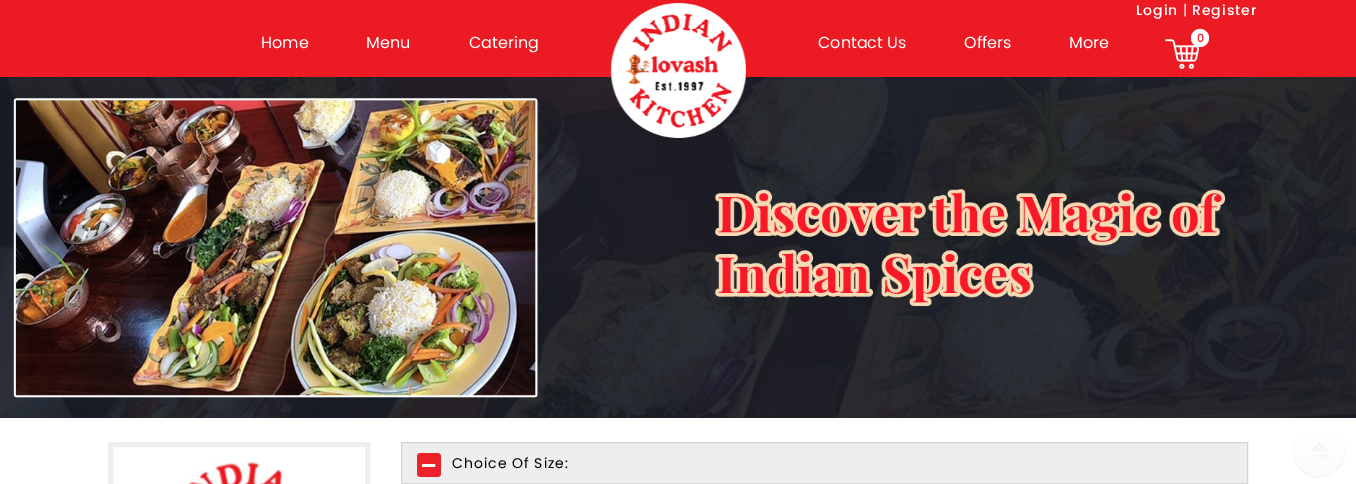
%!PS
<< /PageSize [1356 484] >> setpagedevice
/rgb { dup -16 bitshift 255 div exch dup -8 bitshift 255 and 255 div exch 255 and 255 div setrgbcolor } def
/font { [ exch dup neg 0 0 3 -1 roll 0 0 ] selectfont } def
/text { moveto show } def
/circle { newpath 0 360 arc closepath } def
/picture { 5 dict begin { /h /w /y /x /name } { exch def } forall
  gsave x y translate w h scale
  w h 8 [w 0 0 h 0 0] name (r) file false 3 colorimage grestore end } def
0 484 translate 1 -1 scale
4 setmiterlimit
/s1 { /Poppins-Regular 16 font 16#FFFFFF rgb } def
16#FFFFFF rgb
0 0 1356 484 rectfill
16#EC1A22 rgb
0 0 1356 77 rectfill
s1
(Home) 261 48 text
(Menu) 366 48 text
(Catering) 469 48 text
(pic3.raw) 0 77 1356 341 picture
(pic1.raw) 610 3 136 135 picture
(Contact Us) 818 48 text
(Offers) 964 48 text
(More) 1069 48 text
/Poppins-Medium 14 font
1136 15 moveto 1 0 (Login) ashow
/Poppins-Regular 14 font
1183 15 moveto 1 0 (|) ashow
/Poppins-Medium 14 font
1192 15 moveto 1 0 (Register) ashow
(pic2.raw) 1165 39 34 30 picture
1200 38 9 circle fill
/Poppins-Bold 11 font
16#EC1A22 rgb
1197 42 moveto 1 0 (0) ashow
(pic4.raw) 1293 432 52 46 picture
16#EEEEEE rgb
5 setlinewidth
110.5 444.5 257 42 rectstroke
(pic5.raw) 187 461 98 23 picture
402 443 845 40 rectfill
(pic6.raw) 417 453 24 24 picture
16#D4D4D4 rgb
1 setlinewidth
401.5 442.5 846 41 rectstroke
/Poppins-Regular 14 font
16#000000 rgb
452 468 moveto 1 0 (Choice Of Size:) ashow
showpage
